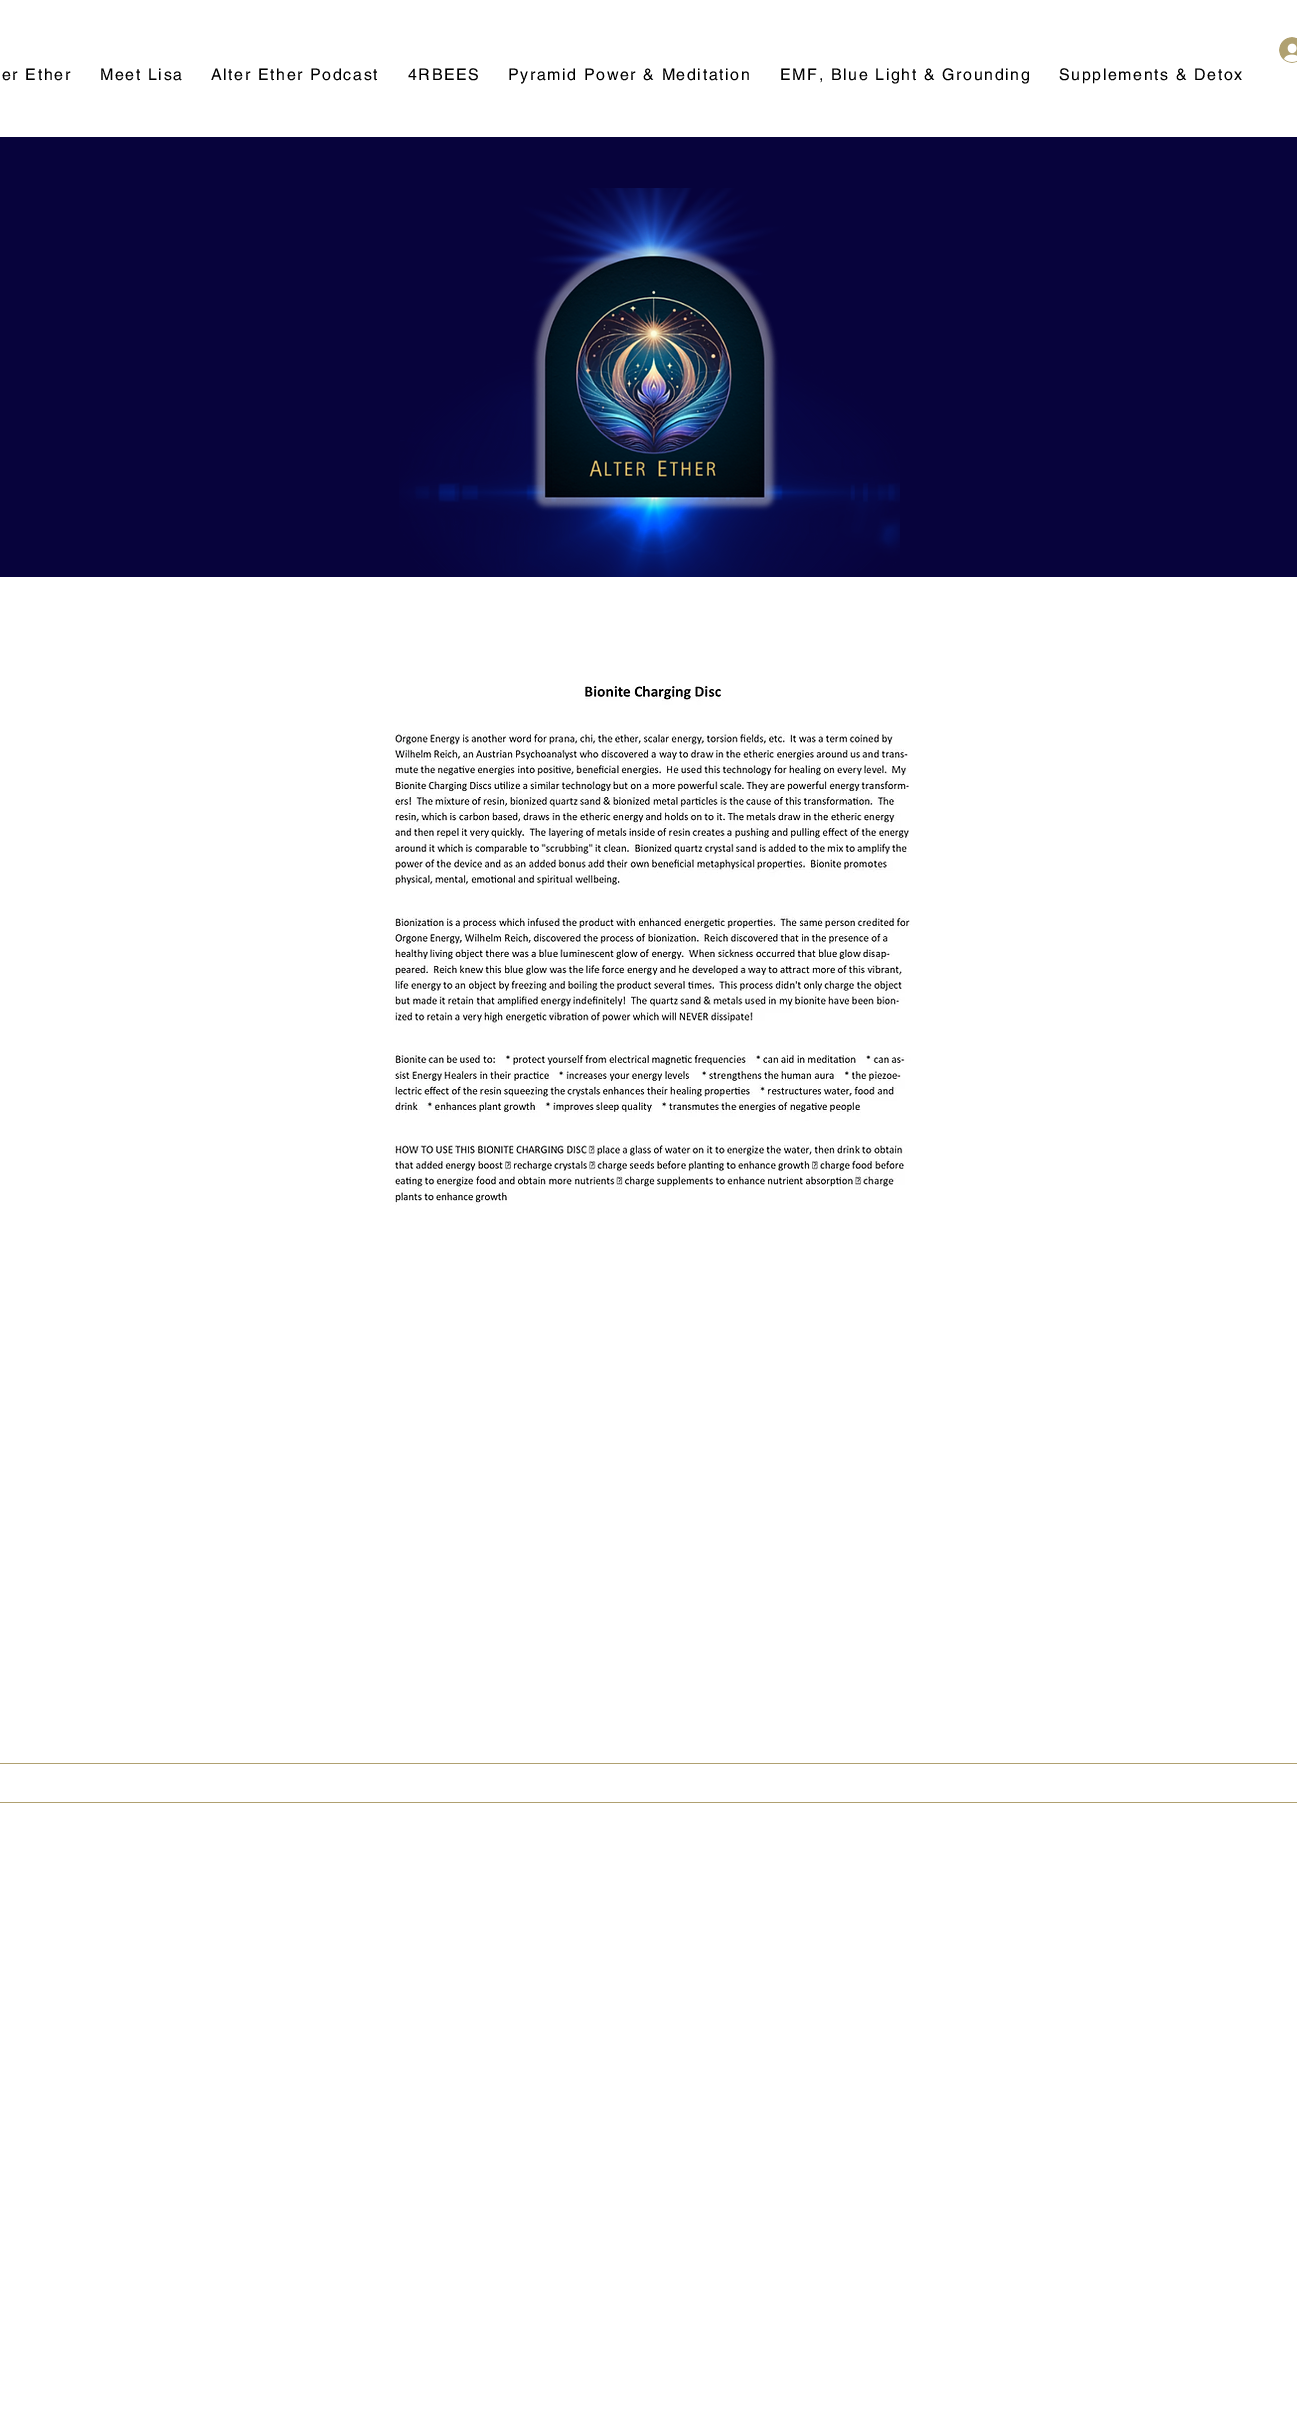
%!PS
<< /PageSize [1297 2420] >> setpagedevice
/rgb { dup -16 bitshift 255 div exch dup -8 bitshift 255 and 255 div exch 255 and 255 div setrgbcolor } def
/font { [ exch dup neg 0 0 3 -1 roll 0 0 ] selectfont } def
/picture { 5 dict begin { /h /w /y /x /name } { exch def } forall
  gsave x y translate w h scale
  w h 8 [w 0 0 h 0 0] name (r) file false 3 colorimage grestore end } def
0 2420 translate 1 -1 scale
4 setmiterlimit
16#FFFFFF rgb
0 0 1297 2420 rectfill
(pic1.raw) 1279 37 18 26 picture
/helvetica-Regular 16 font
16#000000 rgb
2 80 moveto 1.6 0 (er Ether) ashow
100 80 moveto 1.6 0 (Meet Lisa) ashow
211 80 moveto 1.6 0 (Alter Ether Podcast) ashow
408 80 moveto 1.6 0 (4RBEES) ashow
508 80 moveto 1.6 0 (Pyramid Power & Meditation) ashow
780 80 moveto 1.6 0 (EMF, Blue Light & Grounding) ashow
1059 80 moveto 1.6 0 (Supplements & Detox) ashow
16#07033C rgb
0 137 1297 440 rectfill
(pic2.raw) 399 188 501 389 picture
(pic3.raw) 393 685 518 520 picture
16#B0A171 rgb
0 1763 1297 1 rectfill
0 1802 1297 1 rectfill
showpage
